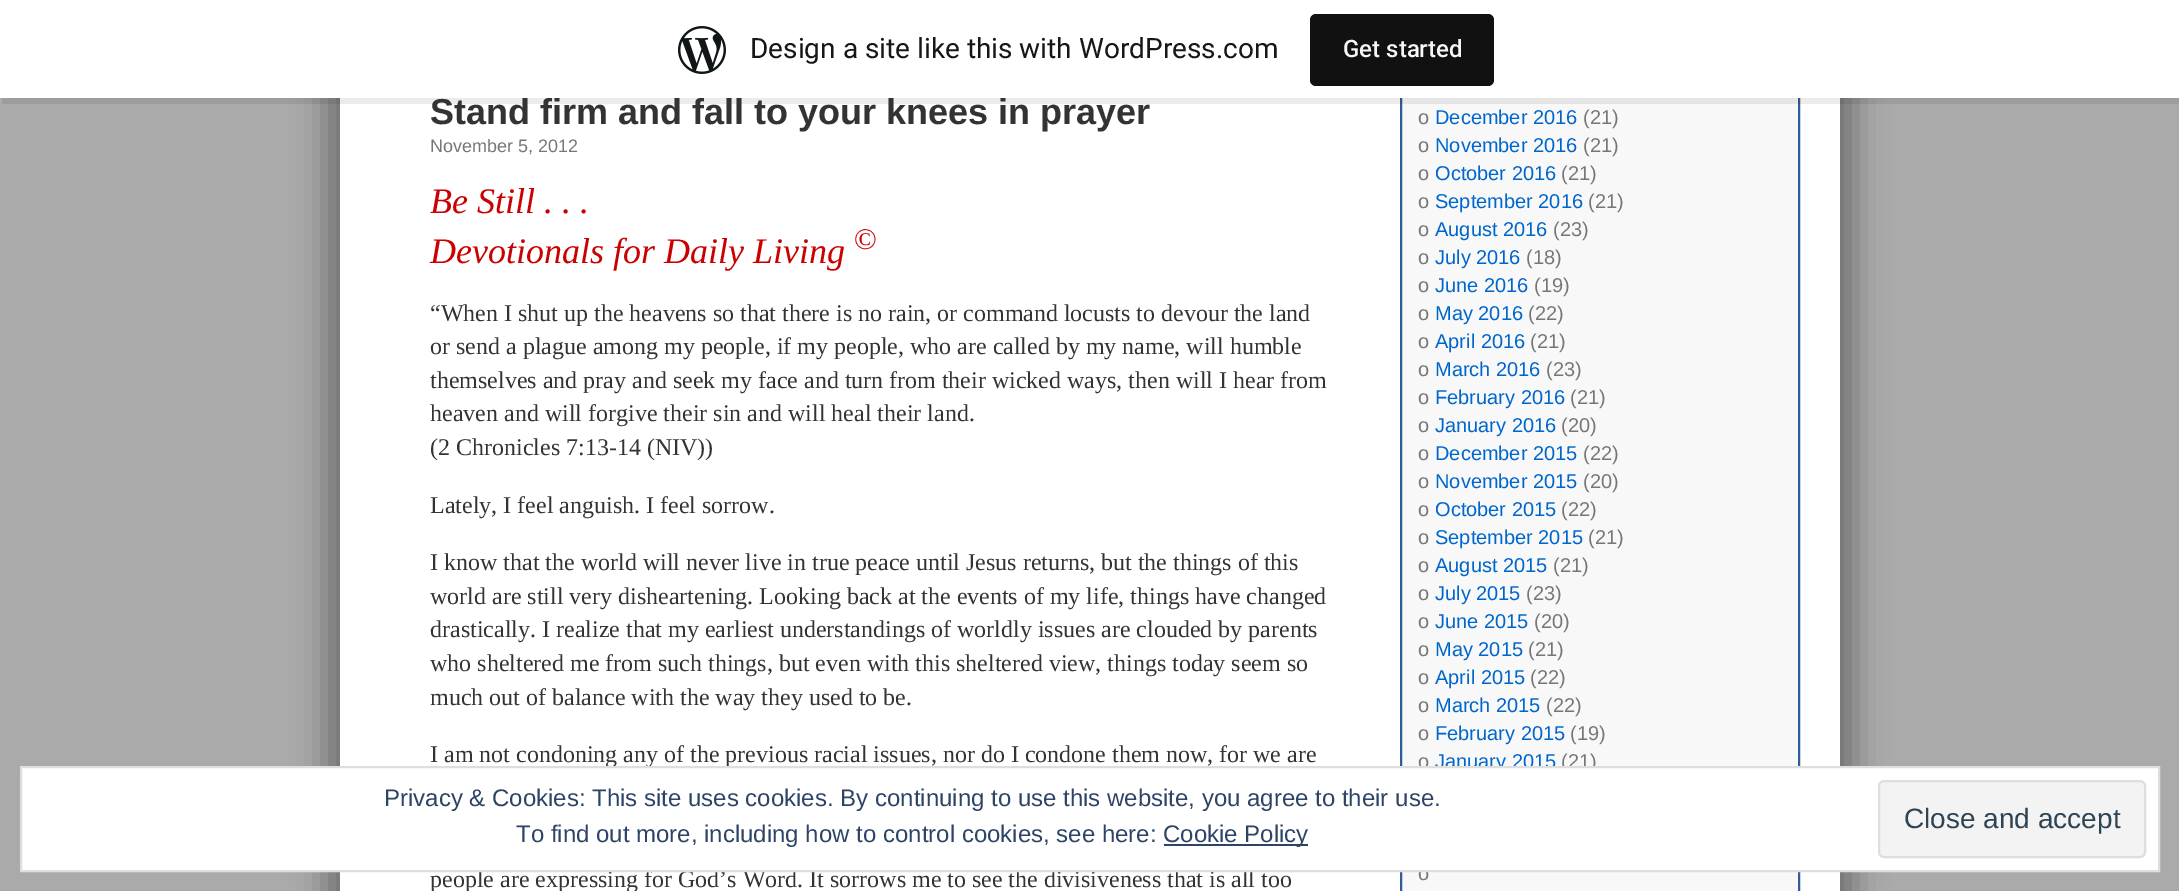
%!PS
<< /PageSize [2179 891] /PageUsesTransparency true >> setpagedevice
/rgb { dup -16 bitshift 255 div exch dup -8 bitshift 255 and 255 div exch 255 and 255 div setrgbcolor } def
/font { [ exch dup neg 0 0 3 -1 roll 0 0 ] selectfont } def
/text { moveto show } def
/alpha { dup .setfillconstantalpha .setstrokeconstantalpha } def
/roundrect { 5 dict begin { /r /h /w /y /x } { exch def } forall
  x r add y moveto x w add y 2 copy h add r arct x w add y h add x 1 index r arct
  x y h add x y r arct x y 2 copy exch w add exch r arct closepath end } def
/shadow { 12 dict begin { /a /b /q /h /w /y /x } { exch def } forall gsave /was 0 def
  9 -2 -9 { dup b mul 4 div /e exch def 1 sub .425 mul 2.718 exch exp 1 add a .99 .min exch div /now exch def
    1 1 now sub 1 was sub div sub alpha /was now def
    w h .min e 2 mul add 0 gt { x e sub y e sub w e 2 mul add h e 2 mul add
      q e add b .6 mul add w h .min 2 div e add .min 0 .max roundrect fill } if } for grestore end } def
/picture { 5 dict begin { /h /w /y /x /name } { exch def } forall
  gsave x y translate w h scale
  w h 8 [w 0 0 h 0 0] name (r) file false 3 colorimage grestore end } def
0 .pushpdf14devicefilter
0 891 translate 1 -1 scale
4 setmiterlimit
/s1 { /LiberationSans-Bold 36 font 16#333333 rgb } def
/s2 { /Roboto-Regular 28 font 16#171717 rgb } def
/s3 { /Roboto-Medium 24 font 16#F6F7F7 rgb } def
/s4 { /LiberationSans-Regular 18 font 16#777777 rgb } def
/s5 { /LiberationSerif-Italic 36 font 16#C90101 rgb } def
/s6 { /LiberationSerif-Regular 30 font 16#C90101 rgb } def
/s7 { /LiberationSerif-Regular 24 font 16#333333 rgb } def
/s8 { /LiberationSans-Regular 20 font 16#777777 rgb } def
/s9 { /LiberationSans-Regular 20 font 16#0066CC rgb } def
/s10 { /LiberationSans-Regular 24 font 16#2E4467 rgb } def
/s11 { /LiberationSans-Regular 28 font 16#2E4453 rgb } def
16#AAAAAA rgb
0 0 2179 891 rectfill
16#000000 rgb
324 -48 1500 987 0 16 0.3 shadow
356 -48 1500 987 0 16 0.3 shadow
16#FFFFFF rgb
340 98 1500 793 rectfill
16#F8F8F8 rgb
1402 98 396 793 rectfill
16#2E5D99 rgb
2 setlinewidth
1401 -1 398 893 rectstroke
0.08 alpha
16#000000 rgb
2 98 moveto 2 104 lineto 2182 104 lineto 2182 6 lineto 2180 6 lineto 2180 98 lineto closepath fill
1 alpha
s1
(Stand firm and fall to your knees in prayer) 430 124 text
16#FFFFFF rgb
0 0 2179 98 rectfill
(pic1.raw) 678 26 48 48 picture
s2
(Design a site like this with WordPress.com) 750 58 text
16#111111 rgb
1310 14 184 72 6 roundrect fill
s3
(Get started) 1343 57 text
s4
(November 5, 2012) 430 152 text
s5
(Be Still . . .) 430 213 text
(Devotionals for Daily Living) 430 263 text
s6
(©) 854 249 text
s7
(“When I shut up the heavens so that there is no rain, or command locusts to devour the land) 430 321 text
(or send a plague among my people, if my people, who are called by my name, will humble) 430 354 text
(themselves and pray and seek my face and turn from their wicked ways, then will I hear from) 430 388 text
(heaven and will forgive their sin and will heal their land.) 430 421 text
(\(2 Chronicles 7:13-14 \(NIV\)\)) 430 455 text
(Lately, I feel anguish. I feel sorrow.) 430 513 text
(I know that the world will never live in true peace until Jesus returns, but the things of this) 430 570 text
(world are still very disheartening. Looking back at the events of my life, things have changed) 430 604 text
(drastically. I realize that my earliest understandings of worldly issues are clouded by parents) 430 637 text
(who sheltered me from such things, but even with this sheltered view, things today seem so) 430 671 text
(much out of balance with the way they used to be.) 430 705 text
(I am not condoning any of the previous racial issues, nor do I condone them now, for we are) 430 762 text
(people are expressing for God’s Word. It sorrows me to see the divisiveness that is all too) 430 887 text
s8
(o) 1418 124 text
s9
(December 2016) 1435 124 text
s8
(\(21\)) 1583 124 text
(o) 1418 152 text
s9
(November 2016) 1435 152 text
s8
(\(21\)) 1583 152 text
(o) 1418 180 text
s9
(October 2016) 1435 180 text
s8
(\(21\)) 1561 180 text
(o) 1418 208 text
s9
(September 2016) 1435 208 text
s8
(\(21\)) 1588 208 text
(o) 1418 236 text
s9
(August 2016) 1435 236 text
s8
(\(23\)) 1553 236 text
(o) 1418 264 text
s9
(July 2016) 1435 264 text
s8
(\(18\)) 1526 264 text
(o) 1418 292 text
s9
(June 2016) 1435 292 text
s8
(\(19\)) 1534 292 text
(o) 1418 320 text
s9
(May 2016) 1435 320 text
s8
(\(22\)) 1528 320 text
(o) 1418 348 text
s9
(April 2016) 1435 348 text
s8
(\(21\)) 1530 348 text
(o) 1418 376 text
s9
(March 2016) 1435 376 text
s8
(\(23\)) 1546 376 text
(o) 1418 404 text
s9
(February 2016) 1435 404 text
s8
(\(21\)) 1570 404 text
(o) 1418 432 text
s9
(January 2016) 1435 432 text
s8
(\(20\)) 1561 432 text
(o) 1418 460 text
s9
(December 2015) 1435 460 text
s8
(\(22\)) 1583 460 text
(o) 1418 488 text
s9
(November 2015) 1435 488 text
s8
(\(20\)) 1583 488 text
(o) 1418 516 text
s9
(October 2015) 1435 516 text
s8
(\(22\)) 1561 516 text
(o) 1418 544 text
s9
(September 2015) 1435 544 text
s8
(\(21\)) 1588 544 text
(o) 1418 572 text
s9
(August 2015) 1435 572 text
s8
(\(21\)) 1553 572 text
(o) 1418 600 text
s9
(July 2015) 1435 600 text
s8
(\(23\)) 1526 600 text
(o) 1418 628 text
s9
(June 2015) 1435 628 text
s8
(\(20\)) 1534 628 text
(o) 1418 656 text
s9
(May 2015) 1435 656 text
s8
(\(21\)) 1528 656 text
(o) 1418 684 text
s9
(April 2015) 1435 684 text
s8
(\(22\)) 1530 684 text
(o) 1418 712 text
s9
(March 2015) 1435 712 text
s8
(\(22\)) 1546 712 text
(o) 1418 740 text
s9
(February 2015) 1435 740 text
s8
(\(19\)) 1570 740 text
(o) 1418 768 text
s9
(January 2015) 1435 768 text
s8
(\(21\)) 1561 768 text
(o) 1418 880 text
16#FFFFFF rgb
21 767 moveto 2159 767 lineto 2159 871 lineto 21 871 lineto closepath gsave fill grestore
16#DEDEDE rgb
stroke
s10
(Privacy & Cookies: This site uses cookies. By continuing to use this website, you agree to their use.) 384 806 text
(To find out more, including how to control cookies, see here:) 516 842 text
1164 844 144 2 rectfill
(Cookie Policy) 1163 842 text
16#F3F3F3 rgb
1879 781 266 76 5 roundrect gsave fill grestore
16#DEDEDE rgb
stroke
s11
(Close and accept) 1904 828 text
.poppdf14devicefilter showpage
